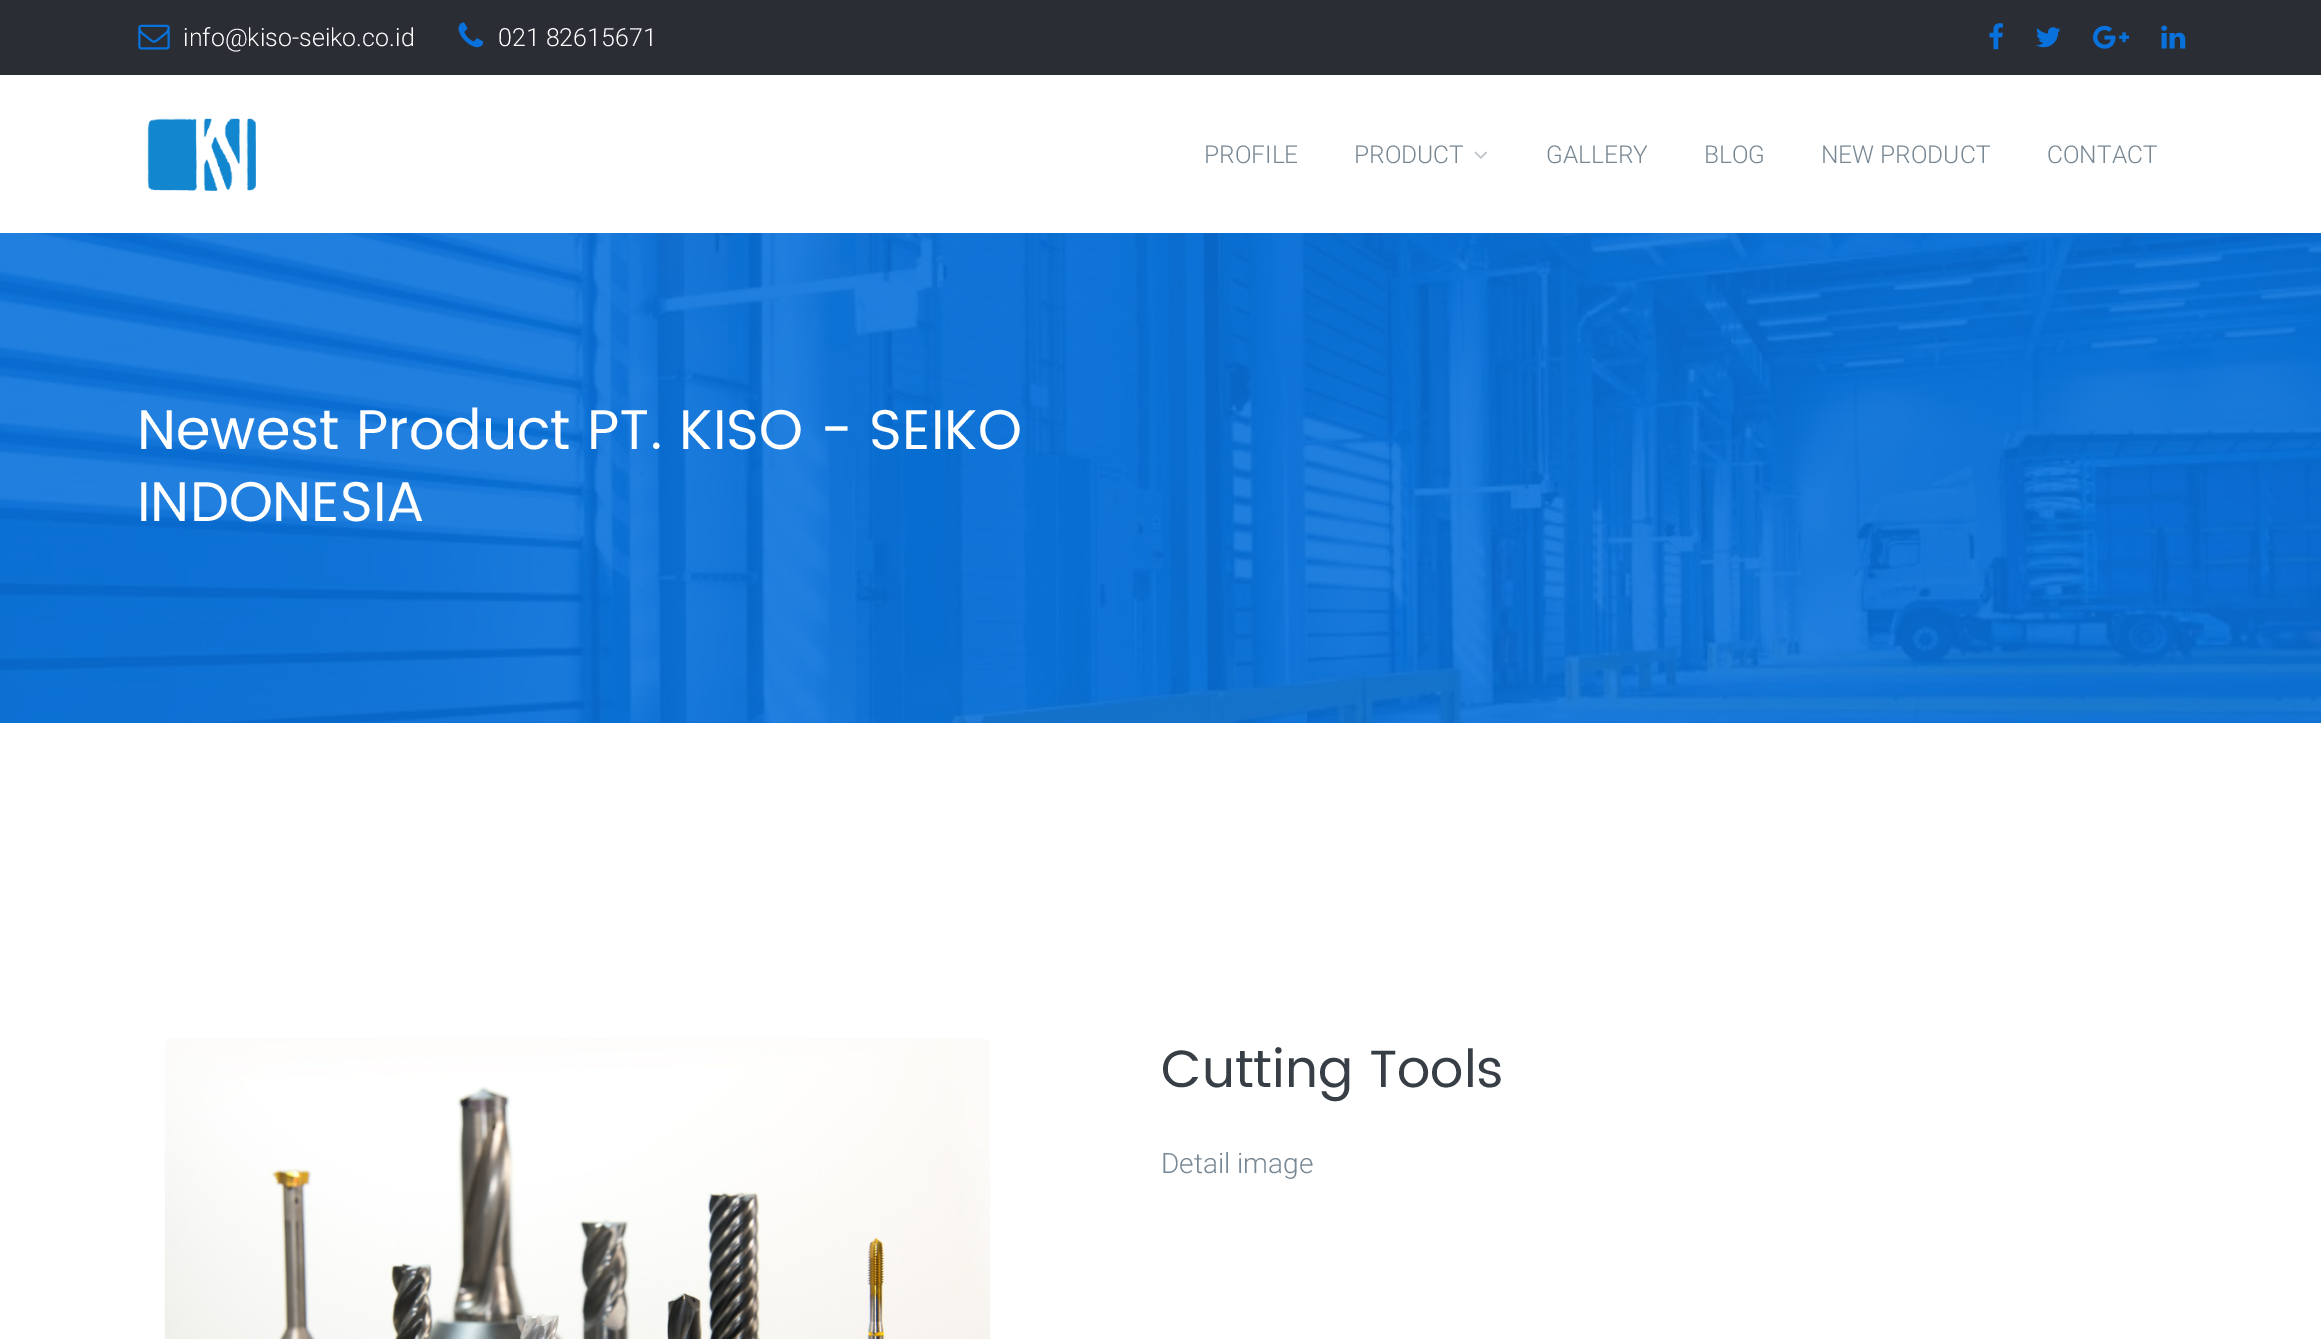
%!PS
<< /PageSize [2321 1339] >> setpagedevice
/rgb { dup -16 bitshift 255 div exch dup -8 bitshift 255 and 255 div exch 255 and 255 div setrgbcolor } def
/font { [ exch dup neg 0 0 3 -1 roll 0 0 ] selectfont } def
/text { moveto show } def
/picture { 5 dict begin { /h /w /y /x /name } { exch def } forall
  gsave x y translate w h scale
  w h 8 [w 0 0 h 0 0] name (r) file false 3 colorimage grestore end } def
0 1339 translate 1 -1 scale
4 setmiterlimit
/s1 { /Roboto-Light 25 font 16#FFFFFF rgb } def
/s2 { /Roboto-Light 24.5 font 16#778793 rgb } def
/s3 { /Poppins-Regular 56 font 16#FFFFFF rgb } def
/s4 { /Poppins-Regular 52.5 font 16#373E45 rgb } def
/s5 { /Roboto-Light 28 font 16#778793 rgb } def
16#FFFFFF rgb
0 0 2321 1339 rectfill
16#2A2D33 rgb
0 0 2321 74 rectfill
16#272A30 rgb
0 74 2321 1 rectfill
(pic1.raw) 138 24 32 26 picture
s1
(info@kiso-seiko.co.id) 183 46 text
(pic2.raw) 458 22 26 26 picture
(021 82615671) 498 46 text
(pic3.raw) 1989 23 14 27 picture
(pic4.raw) 2036 27 25 21 picture
(pic5.raw) 2093 25 36 24 picture
(pic6.raw) 2161 25 25 24 picture
(pic7.raw) 147 118 109 73 picture
s2
(PROFILE) 1204 163 text
(PRODUCT) 1354 163 text
(pic8.raw) 1474 151 13 8 picture
(GALLERY) 1546 163 text
(BLOG) 1704 163 text
(NEW PRODUCT) 1821 163 text
(CONTACT) 2047 163 text
(pic9.raw) 0 233 2321 490 picture
s3
(Newest Product PT. KISO - SEIKO) 137 449 text
(INDONESIA) 137 521 text
(pic10.raw) 164 1038 827 301 picture
s4
(Cutting Tools) 1161 1087 text
s5
(Detail image) 1161 1173 text
showpage
